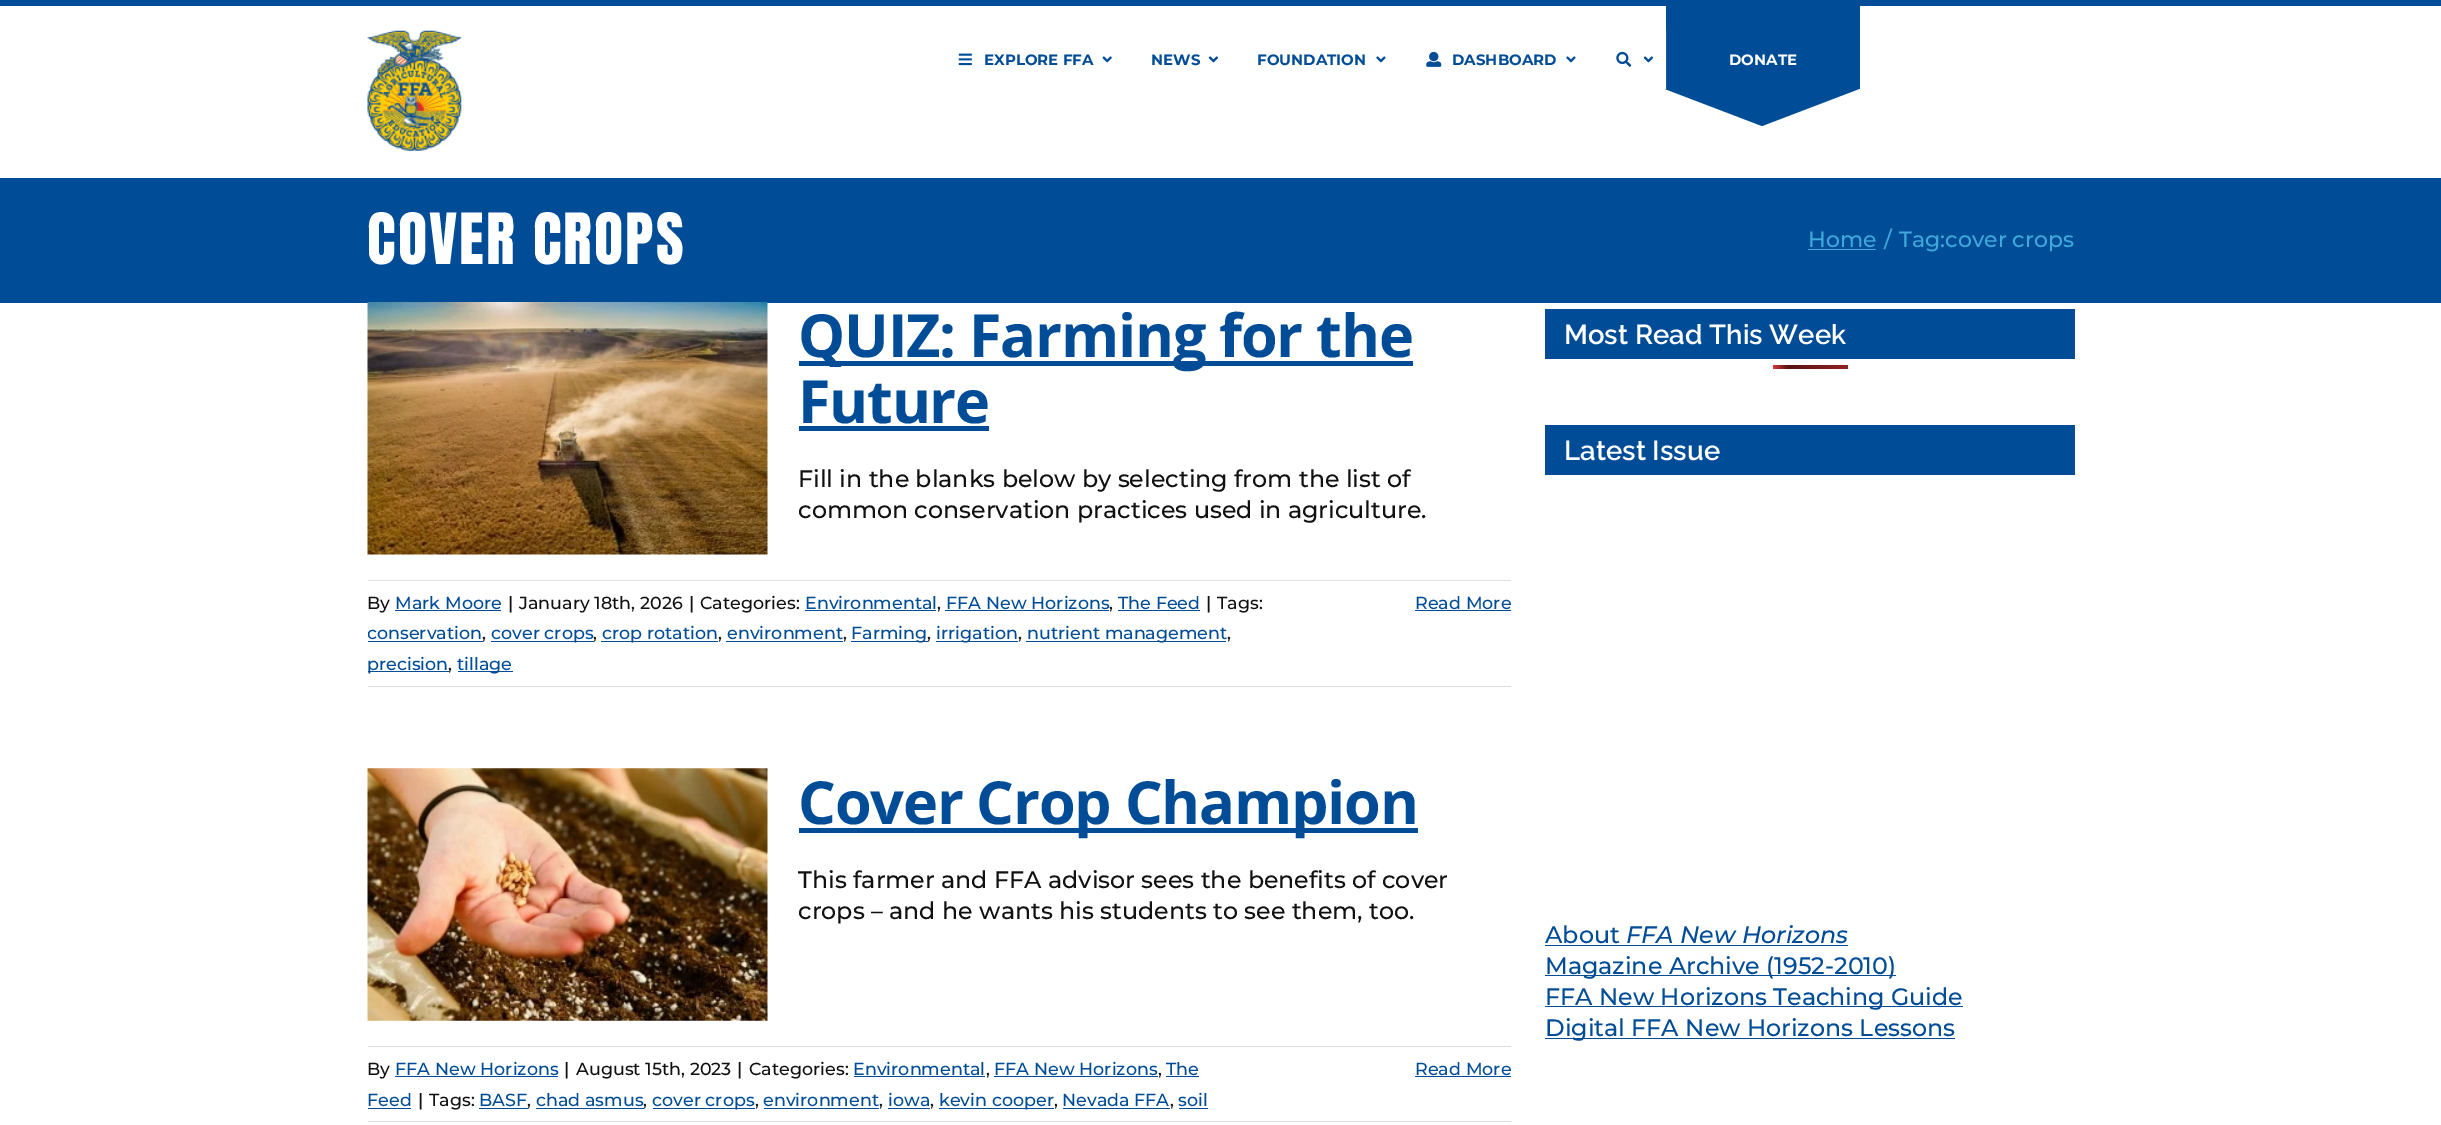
%!PS
<< /PageSize [2441 1125] >> setpagedevice
/rgb { dup -16 bitshift 255 div exch dup -8 bitshift 255 and 255 div exch 255 and 255 div setrgbcolor } def
/font { [ exch dup neg 0 0 3 -1 roll 0 0 ] selectfont } def
/text { moveto show } def
/roundrect { 5 dict begin { /r /h /w /y /x } { exch def } forall
  x r add y moveto x w add y 2 copy h add r arct x w add y h add x 1 index r arct
  x y h add x y r arct x y 2 copy exch w add exch r arct closepath end } def
/picture { 5 dict begin { /h /w /y /x /name } { exch def } forall
  gsave x y translate w h scale
  w h 8 [w 0 0 h 0 0] name (r) file false 3 colorimage grestore end } def
0 1125 translate 1 -1 scale
4 setmiterlimit
/s1 { /Montserrat-Bold 15 font 16#004C97 rgb } def
/s2 { /Montserrat-Bold 15 font 16#FFFFFF rgb } def
/s3 { /Montserrat-Medium 22 font 16#3EA9DA rgb } def
/s4 { /Montserrat-Medium 23.75 font 16#111111 rgb } def
/s5 { /Montserrat-Medium 17.5 font 16#111111 rgb } def
/s6 { /Montserrat-Medium 17.5 font 16#004C97 rgb } def
/s7 { /Raleway-Thin 27.5 font 16#FFFFFF rgb } def
/s8 { /Montserrat-Medium 23.75 font 16#004C97 rgb } def
/s9 { /Montserrat-MediumItalic 23.75 font 16#004C97 rgb } def
16#FFFFFF rgb
0 0 2441 1125 rectfill
16#004C97 rgb
0 0 2441 6 rectfill
(pic1.raw) 367 30 95 121 picture
(pic2.raw) 958 53 14 13 picture
s1
(EXPLORE FFA) 984 65 text
(pic3.raw) 1102 56 10 7 picture
(NEWS) 1151 65 text
(pic4.raw) 1208 56 11 7 picture
(FOUNDATION) 1257 65 text
(pic5.raw) 1376 56 10 7 picture
(pic6.raw) 1426 51 16 16 picture
(DASHBOARD) 1452 65 text
(pic5.raw) 1566 56 10 7 picture
(pic7.raw) 1616 51 16 16 picture
(pic4.raw) 1643 56 11 7 picture
1666 6 194 25 rectfill
1667 31 193 58 rectfill
16#1A5EA1 rgb
1666 31 1 58 rectfill
s2
(DONATE) 1729 65 text
16#004C97 rgb
1665 89 moveto 1859 89 lineto 1762 126 lineto closepath eofill
0 178 2441 125 rectfill
/Anton-Regular 60 font
16#FFFFFF rgb
367 264 moveto 2.1 0 (COVER CROPS) ashow
s3
(Home) 1808 247 text
1808 249 68 1 rectfill
(/) 1884 247 text
(Tag:cover crops) 1899 247 text
(pic8.raw) 367 302 401 253 picture
16#004C97 rgb
799 361 614 5 rectfill
/OpenSans-Bold 59.4 font
798 357 moveto -1.25 0 (QUIZ: Farming for the) ashow
798 423 moveto -1.25 0 (Future) ashow
799 426 190 5 rectfill
s4
(Fill in the blanks below by selecting from the list of) 798 487 text
(common conservation practices used in agriculture.) 798 518 text
16#E0DEDE rgb
368 580 1143 1 rectfill
368 686 1143 1 rectfill
s5
(By) 367 609 text
s6
(Mark Moore) 395 609 text
395 610 106 1 rectfill
s5
(|) 508 609 text
(January 18th, 2026) 519 609 text
(|) 689 609 text
(Categories:) 700 609 text
s6
(Environmental) 805 609 text
805 610 131 1 rectfill
s5
(,) 937 609 text
s6
(FFA New Horizons) 946 609 text
945 610 164 1 rectfill
s5
(,) 1109 609 text
s6
(The Feed) 1118 609 text
1118 610 82 1 rectfill
s5
(|) 1206 609 text
(Tags:) 1217 609 text
gsave
368 581 1143 105 rectclip
s6
(conservation) 367 639 text
grestore
16#004C97 rgb
368 641 115 1 rectfill
s5
(,) 482 639 text
16#004C97 rgb
491 641 103 1 rectfill
(cover crops) 491 639 text
s5
(,) 593 639 text
16#004C97 rgb
601 641 117 1 rectfill
(crop rotation) 602 639 text
s5
(,) 718 639 text
s6
(environment) 727 639 text
s5
(,) 843 639 text
16#004C97 rgb
726 641 117 1 rectfill
851 641 77 1 rectfill
(Farming) 851 639 text
s5
(,) 927 639 text
16#004C97 rgb
936 641 82 1 rectfill
(irrigation) 936 639 text
s5
(,) 1018 639 text
16#004C97 rgb
1026 641 200 1 rectfill
(nutrient management) 1027 639 text
s5
(,) 1227 639 text
16#004C97 rgb
368 671 81 1 rectfill
(precision) 367 670 text
s5
(,) 448 670 text
16#004C97 rgb
458 671 55 1 rectfill
(tillage) 457 670 text
(Read More) 1415 609 text
1415 610 96 1 rectfill
(pic9.raw) 367 768 401 253 picture
799 828 619 5 rectfill
/OpenSans-Bold 59.4 font
798 824 moveto -1.25 0 (Cover Crop Champion) ashow
s4
(This farmer and FFA advisor sees the benefits of cover) 798 888 text
(crops – and he wants his students to see them, too.) 798 919 text
16#E0DEDE rgb
368 1046 1143 1 rectfill
368 1121 1143 1 rectfill
s5
(By) 367 1075 text
s6
(FFA New Horizons) 395 1075 text
395 1076 163 1 rectfill
s5
(|) 564 1075 text
(August 15th, 2023) 576 1075 text
(|) 737 1075 text
(Categories:) 749 1075 text
s6
(Environmental) 853 1075 text
854 1076 131 1 rectfill
s5
(,) 986 1075 text
s6
(FFA New Horizons) 994 1075 text
994 1076 164 1 rectfill
s5
(,) 1158 1075 text
s6
(The) 1166 1075 text
1166 1076 33 1 rectfill
(Feed) 367 1106 text
368 1108 43 1 rectfill
s5
(|) 418 1106 text
(Tags:) 429 1106 text
s6
(BASF) 479 1106 text
s5
(,) 527 1106 text
16#004C97 rgb
479 1108 49 1 rectfill
(chad asmus) 536 1106 text
s5
(,) 643 1106 text
16#004C97 rgb
536 1108 108 1 rectfill
653 1108 102 1 rectfill
(cover crops) 652 1106 text
s5
(,) 755 1106 text
s6
(environment) 763 1106 text
s5
(,) 879 1106 text
16#004C97 rgb
764 1108 115 1 rectfill
(iowa) 888 1106 text
s5
(,) 930 1106 text
16#004C97 rgb
888 1108 42 1 rectfill
939 1108 115 1 rectfill
(kevin cooper) 939 1106 text
s5
(,) 1054 1106 text
s6
(Nevada FFA) 1062 1106 text
s5
(,) 1170 1106 text
16#004C97 rgb
1063 1108 107 1 rectfill
1179 1108 29 1 rectfill
(soil) 1178 1106 text
(Read More) 1415 1075 text
1415 1076 96 1 rectfill
1545 309 530 50 rectfill
s7
(Most Read This Week) 1564 344 text
gsave 1773 365 75 4 2 roundrect clip newpath
<< /ShadingType 2 /ColorSpace /DeviceRGB /Coords [1773 367 1923 367] /Extend [true true] /Function << /FunctionType 3 /Domain [0 1] /Functions [<< /FunctionType 2 /Domain [0 1] /C0 [0.867 0.216 0.216] /C1 [0.341 0.075 0.075] /N 1 >> << /FunctionType 2 /Domain [0 1] /C0 [0.341 0.075 0.075] /C1 [0.867 0.216 0.216] /N 1 >>] /Bounds [0.1] /Encode [0 1 0 1] >> >> shfill grestore
16#004C97 rgb
1545 425 530 50 rectfill
s7
(Latest Issue) 1564 460 text
s8
(About) 1545 943 text
1545 945 303 1 rectfill
s9
(FFA New Horizons) 1626 943 text
1545 975 351 1 rectfill
s8
(Magazine Archive \(1952-2010\)) 1545 974 text
1545 1006 418 1 rectfill
(FFA New Horizons Teaching Guide) 1545 1005 text
1545 1038 410 1 rectfill
(Digital FFA New Horizons Lessons) 1545 1036 text
showpage
